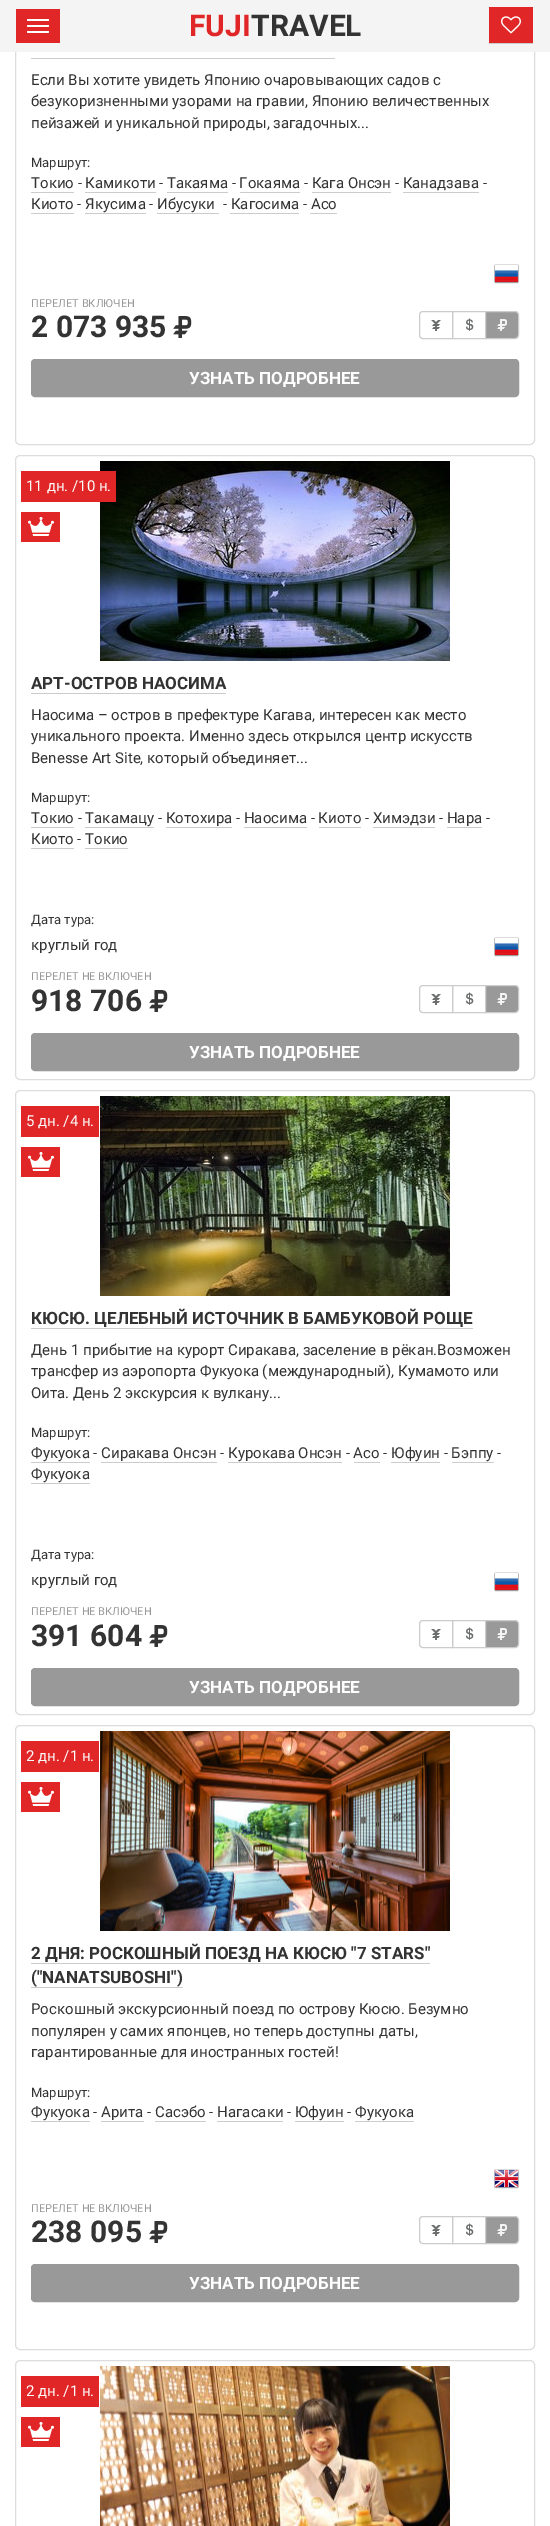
%!PS
<< /PageSize [550 2526] >> setpagedevice
/rgb { dup -16 bitshift 255 div exch dup -8 bitshift 255 and 255 div exch 255 and 255 div setrgbcolor } def
/font { [ exch dup neg 0 0 3 -1 roll 0 0 ] selectfont } def
/text { moveto show } def
/roundrect { 5 dict begin { /r /h /w /y /x } { exch def } forall
  x r add y moveto x w add y 2 copy h add r arct x w add y h add x 1 index r arct
  x y h add x y r arct x y 2 copy exch w add exch r arct closepath end } def
/picture { 5 dict begin { /h /w /y /x /name } { exch def } forall
  gsave x y translate w h scale
  w h 8 [w 0 0 h 0 0] name (r) file false 3 colorimage grestore end } def
0 2526 translate 1 -1 scale
4 setmiterlimit
/s1 { /Roboto-Bold 30 font 16#E02626 rgb } def
/s2 { /Roboto-Bold 30 font 16#333333 rgb } def
/s3 { /Roboto-Regular 15 font 16#333333 rgb } def
/s4 { /Roboto-Regular 13 font 16#333333 rgb } def
/s5 { /Roboto-Regular 11 font 16#999999 rgb } def
/s6 { /Roboto-Bold 17 font 16#FEFEFE rgb } def
/s7 { /Roboto-Regular 15 font 16#FEFEFE rgb } def
/s8 { /Roboto-Bold 17 font 16#333333 rgb } def
16#FFFFFF rgb
0 0 550 2526 rectfill
16#DDDDDD rgb
15.5 -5.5 519 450 4.5 roundrect stroke
16#F4F4F5 rgb
0 0 550 52 rectfill
16#E02626 rgb
16 9 44 34 rectfill
16#FFFFFF rgb
27 19 22 2 1 roundrect fill
27 25 22 2 1 roundrect fill
27 31 22 2 1 roundrect fill
s1
(FUJI) 189 36 text
s2
(TRAVEL) 251 36 text
16#E02626 rgb
489 7 44 36 rectfill
16#CCCCCC rgb
489 43 44 1 rectfill
(pic1.raw) 501 16 20 18 picture
31 58 304 1 rectfill
s3
(Если Вы хотите увидеть Японию очаровывающих садов с) 31 85 text
(безукоризненными узорами на гравии, Японию величественных) 31 106 text
(пейзажей и уникальной природы, загадочных...) 31 128 text
s4
(Маршрут:) 31 167 text
s3
(Токио - Камикоти - Такаяма - Гокаяма - Кага Онсэн - Канадзава -) 31 188 text
16#CCCCCC rgb
31 192 43 1 rectfill
85 192 71 1 rectfill
167 192 61 1 rectfill
240 192 60 1 rectfill
312 192 79 1 rectfill
403 192 76 1 rectfill
s3
(Киото - Якусима - Ибусуки) 31 209 text
16#CCCCCC rgb
31 213 43 1 rectfill
s3
(- Кагосима - Асо) 223 209 text
16#CCCCCC rgb
85 213 61 1 rectfill
157 213 62 1 rectfill
230 213 69 1 rectfill
310 213 27 1 rectfill
(pic2.raw) 494 264 25 20 picture
s5
(ПЕРЕЛЕТ ВКЛЮЧЕН) 31 307 text
s2
(2 073 935) 31 337 text
(pic3.raw) 173 316 19 22 picture
16#CCCCCC rgb
423 311.5 moveto 452.5 311.5 lineto 452.5 338.5 lineto 423 338.5 lineto 421 338.5 419.5 337 419.5 335 curveto 419.5 315 lineto 419.5 313 421 311.5 423 311.5 curveto closepath stroke
(pic4.raw) 431 320 10 11 picture
452.5 311.5 33 27 rectstroke
(pic5.raw) 466 318 8 13 picture
16#999999 rgb
485.5 311.5 moveto 515 311.5 lineto 517 311.5 518.5 313 518.5 315 curveto 518.5 335 lineto 518.5 337 517 338.5 515 338.5 curveto 485.5 338.5 lineto closepath gsave fill grestore
16#CCCCCC rgb
stroke
(pic6.raw) 497 319 10 12 picture
16#999999 rgb
31.5 359.5 487 37 3.5 roundrect gsave fill grestore
stroke
s6
(УЗНАТЬ ПОДРОБНЕЕ) 189 384 text
16#DDDDDD rgb
15.5 455.5 519 624 4.5 roundrect stroke
(pic7.raw) 100 461 350 200 picture
16#E02626 rgb
21 471 95 31 rectfill
s7
(11 дн. /10 н.) 26 491 text
(pic8.raw) 21 512 39 30 picture
s8
(АРТ-ОСТРОВ НАОСИМА) 31 689 text
16#CCCCCC rgb
31 693 195 1 rectfill
s3
(Наосима – остров в префектуре Кагава, интересен как место) 31 720 text
(уникального проекта. Именно здесь открылся центр искусств) 31 741 text
(Benesse Art Site, который объединяет...) 31 763 text
s4
(Маршрут:) 31 802 text
s3
(Токио - Такамацу - Котохира - Наосима - Киото - Химэдзи - Нара -) 31 823 text
16#CCCCCC rgb
31 827 43 1 rectfill
85 827 69 1 rectfill
166 827 66 1 rectfill
244 827 63 1 rectfill
319 827 42 1 rectfill
373 827 62 1 rectfill
447 827 35 1 rectfill
s3
(Киото - Токио) 31 844 text
16#CCCCCC rgb
31 848 43 1 rectfill
85 848 43 1 rectfill
s4
(Дата тура:) 31 924 text
s3
(круглый год) 31 950 text
(pic2.raw) 494 937 25 20 picture
s5
(ПЕРЕЛЕТ НЕ ВКЛЮЧЕН) 31 980 text
s2
(918 706) 31 1011 text
(pic3.raw) 149 990 19 22 picture
16#CCCCCC rgb
423 985.5 moveto 452.5 985.5 lineto 452.5 1012.5 lineto 423 1012.5 lineto 421 1012.5 419.5 1011 419.5 1009 curveto 419.5 989 lineto 419.5 987 421 985.5 423 985.5 curveto closepath stroke
(pic4.raw) 431 994 10 11 picture
452.5 985.5 33 27 rectstroke
(pic5.raw) 466 992 8 13 picture
16#999999 rgb
485.5 985.5 moveto 515 985.5 lineto 517 985.5 518.5 987 518.5 989 curveto 518.5 1009 lineto 518.5 1011 517 1012.5 515 1012.5 curveto 485.5 1012.5 lineto closepath gsave fill grestore
16#CCCCCC rgb
stroke
(pic6.raw) 497 993 10 12 picture
16#999999 rgb
31.5 1033.5 487 37 3.5 roundrect gsave fill grestore
stroke
s6
(УЗНАТЬ ПОДРОБНЕЕ) 189 1058 text
16#DDDDDD rgb
15.5 1090.5 519 624 4.5 roundrect stroke
(pic9.raw) 100 1096 350 200 picture
16#E02626 rgb
21 1106 78 31 rectfill
s7
(5 дн. /4 н.) 26 1126 text
(pic8.raw) 21 1147 39 30 picture
s8
(КЮСЮ. ЦЕЛЕБНЫЙ ИСТОЧНИК В БАМБУКОВОЙ РОЩЕ) 31 1324 text
16#CCCCCC rgb
31 1328 442 1 rectfill
s3
(День 1 прибытие на курорт Сиракава, заселение в рёкан.Возможен) 31 1355 text
(трансфер из аэропорта Фукуока \(международный\), Кумамото или) 31 1376 text
(Оита. День 2 экскурсия к вулкану...) 31 1398 text
s4
(Маршрут:) 31 1437 text
s3
(Фукуока - Сиракава Онсэн - Курокава Онсэн - Асо - Юфуин - Бэппу -) 31 1458 text
16#CCCCCC rgb
31 1462 59 1 rectfill
101 1462 116 1 rectfill
228 1462 114 1 rectfill
354 1462 26 1 rectfill
391 1462 49 1 rectfill
452 1462 42 1 rectfill
s3
(Фукуока) 31 1479 text
16#CCCCCC rgb
31 1483 59 1 rectfill
s4
(Дата тура:) 31 1559 text
s3
(круглый год) 31 1585 text
(pic2.raw) 494 1572 25 20 picture
s5
(ПЕРЕЛЕТ НЕ ВКЛЮЧЕН) 31 1615 text
s2
(391 604) 31 1646 text
(pic3.raw) 149 1625 19 22 picture
16#CCCCCC rgb
423 1620.5 moveto 452.5 1620.5 lineto 452.5 1647.5 lineto 423 1647.5 lineto 421 1647.5 419.5 1646 419.5 1644 curveto 419.5 1624 lineto 419.5 1622 421 1620.5 423 1620.5 curveto closepath stroke
(pic4.raw) 431 1629 10 11 picture
452.5 1620.5 33 27 rectstroke
(pic5.raw) 466 1627 8 13 picture
16#999999 rgb
485.5 1620.5 moveto 515 1620.5 lineto 517 1620.5 518.5 1622 518.5 1624 curveto 518.5 1644 lineto 518.5 1646 517 1647.5 515 1647.5 curveto 485.5 1647.5 lineto closepath gsave fill grestore
16#CCCCCC rgb
stroke
(pic6.raw) 497 1628 10 12 picture
16#999999 rgb
31.5 1668.5 487 37 3.5 roundrect gsave fill grestore
stroke
s6
(УЗНАТЬ ПОДРОБНЕЕ) 189 1693 text
16#DDDDDD rgb
15.5 1725.5 519 624 4.5 roundrect stroke
(pic10.raw) 100 1731 350 200 picture
16#E02626 rgb
21 1741 78 31 rectfill
s7
(2 дн. /1 н.) 26 1761 text
(pic8.raw) 21 1782 39 30 picture
s8
(2 ДНЯ: РОСКОШНЫЙ ПОЕЗД НА КЮСЮ "7 STARS") 31 1959 text
16#CCCCCC rgb
31 1963 399 1 rectfill
s8
(\("NANATSUBOSHI"\)) 31 1983 text
16#CCCCCC rgb
31 1987 152 1 rectfill
s3
(Роскошный экскурсионный поезд по острову Кюсю. Безумно) 31 2014 text
(популярен у самих японцев, но теперь доступны даты,) 31 2036 text
(гарантированные для иностранных гостей!) 31 2057 text
s4
(Маршрут:) 31 2097 text
s3
(Фукуока - Арита - Сасэбо - Нагасаки - Юфуин - Фукуока) 31 2117 text
16#CCCCCC rgb
31 2121 59 1 rectfill
101 2121 43 1 rectfill
155 2121 51 1 rectfill
217 2121 66 1 rectfill
295 2121 49 1 rectfill
355 2121 59 1 rectfill
(pic11.raw) 494 2169 25 20 picture
s5
(ПЕРЕЛЕТ НЕ ВКЛЮЧЕН) 31 2212 text
s2
(238 095) 31 2242 text
(pic3.raw) 149 2221 19 22 picture
16#CCCCCC rgb
423 2216.5 moveto 452.5 2216.5 lineto 452.5 2243.5 lineto 423 2243.5 lineto 421 2243.5 419.5 2242 419.5 2240 curveto 419.5 2220 lineto 419.5 2218 421 2216.5 423 2216.5 curveto closepath stroke
(pic4.raw) 431 2225 10 11 picture
452.5 2216.5 33 27 rectstroke
(pic5.raw) 466 2223 8 13 picture
16#999999 rgb
485.5 2216.5 moveto 515 2216.5 lineto 517 2216.5 518.5 2218 518.5 2220 curveto 518.5 2240 lineto 518.5 2242 517 2243.5 515 2243.5 curveto 485.5 2243.5 lineto closepath gsave fill grestore
16#CCCCCC rgb
stroke
(pic6.raw) 497 2224 10 12 picture
16#999999 rgb
31.5 2264.5 487 37 3.5 roundrect gsave fill grestore
stroke
s6
(УЗНАТЬ ПОДРОБНЕЕ) 189 2289 text
16#DDDDDD rgb
15.5 2360.5 519 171 4.5 roundrect stroke
(pic12.raw) 100 2366 350 160 picture
16#E02626 rgb
21 2376 78 31 rectfill
s7
(2 дн. /1 н.) 26 2396 text
(pic8.raw) 21 2417 39 30 picture
showpage
